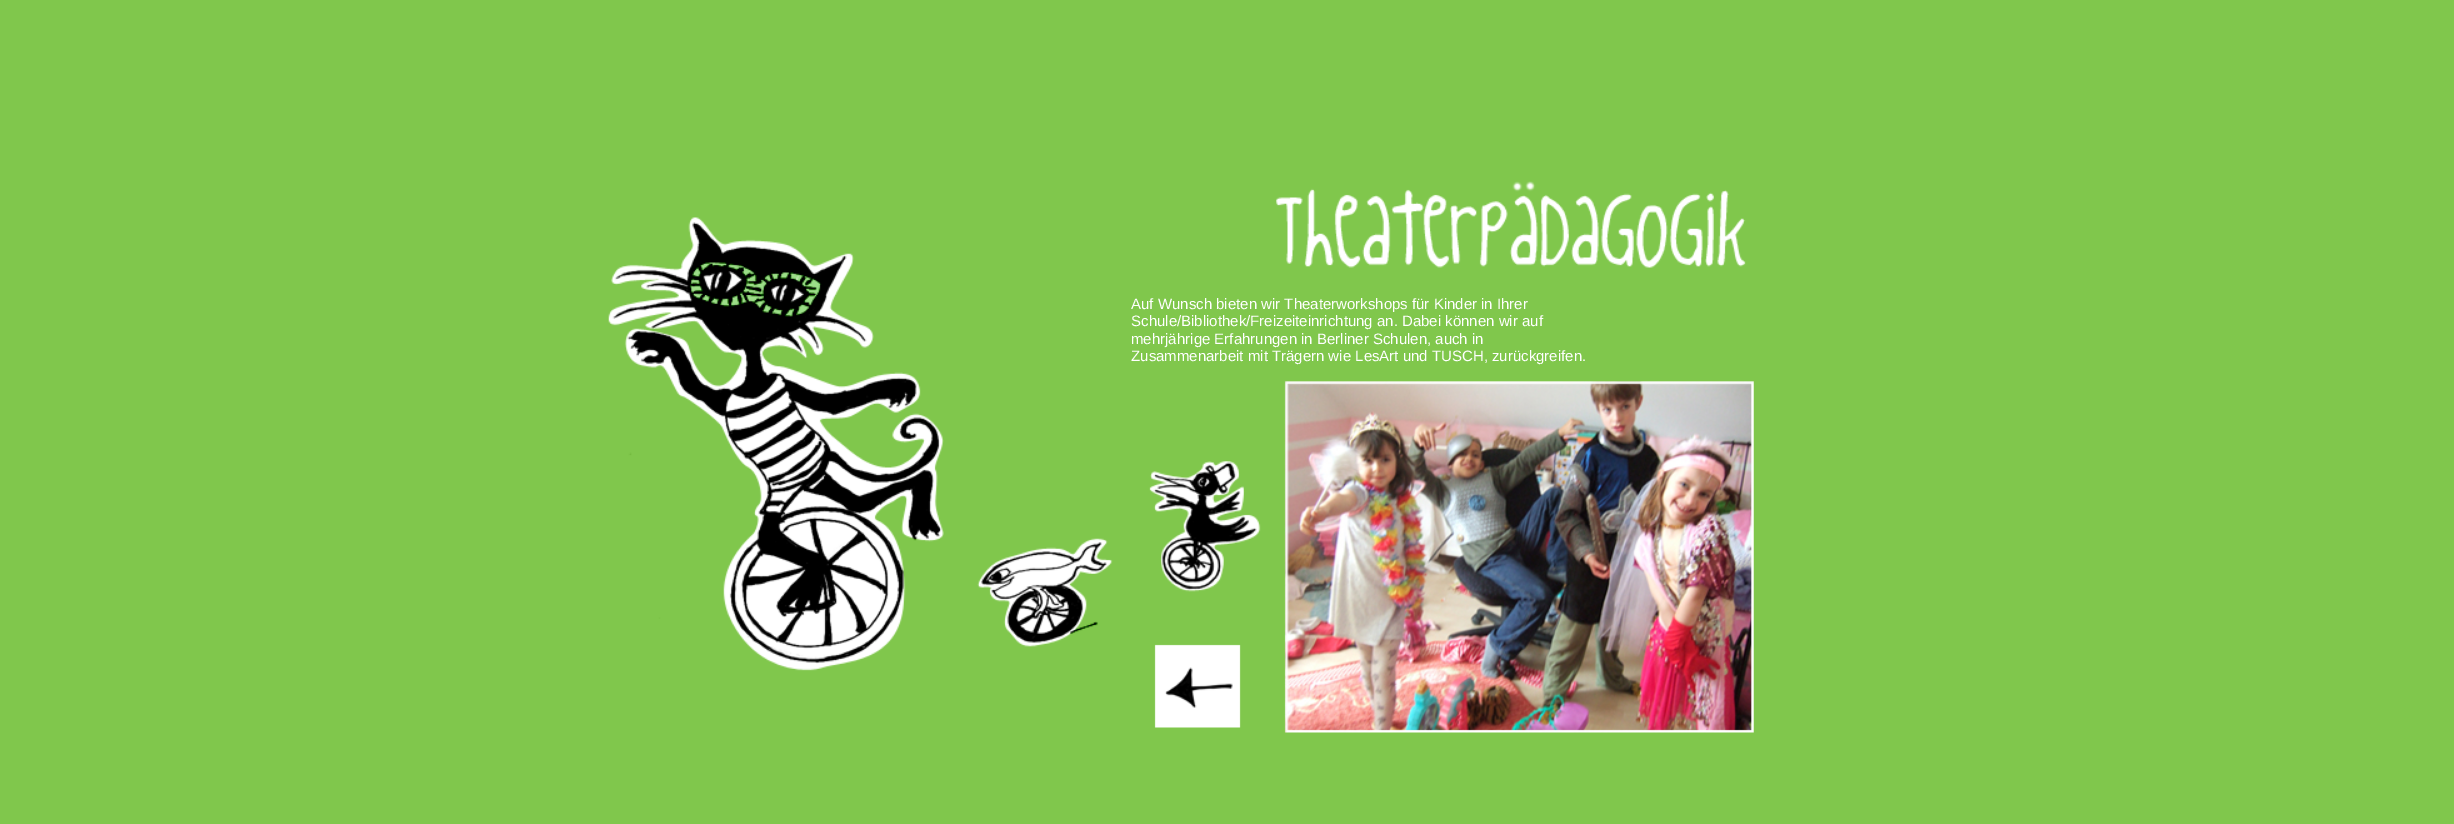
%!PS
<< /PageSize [2454 824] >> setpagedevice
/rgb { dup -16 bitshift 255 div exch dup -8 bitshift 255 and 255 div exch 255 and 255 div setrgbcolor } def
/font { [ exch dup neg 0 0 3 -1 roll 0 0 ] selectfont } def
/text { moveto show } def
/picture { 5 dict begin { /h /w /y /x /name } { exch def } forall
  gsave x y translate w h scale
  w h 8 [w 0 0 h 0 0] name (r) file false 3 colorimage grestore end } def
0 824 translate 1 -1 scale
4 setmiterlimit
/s1 { /LiberationSans-Regular 15 font 16#FFFFFF rgb } def
16#80C74C rgb
0 0 2454 824 rectfill
(pic1.raw) 611 217 243 78 picture
(pic2.raw) 1276 181 470 87 picture
(pic3.raw) 608 295 505 376 picture
s1
(Auf Wunsch bieten wir Theaterworkshops für Kinder in Ihrer) 1131 309 text
(Schule/Bibliothek/Freizeiteinrichtung an. Dabei können wir auf) 1131 326 text
(mehrjährige Erfahrungen in Berliner Schulen, auch in) 1131 344 text
(Zusammenarbeit mit Trägern wie LesArt und TUSCH, zurückgreifen.) 1131 361 text
(pic4.raw) 1149 461 112 131 picture
(pic5.raw) 1154 644 87 84 picture
(pic6.raw) 1284 381 470 352 picture
showpage
